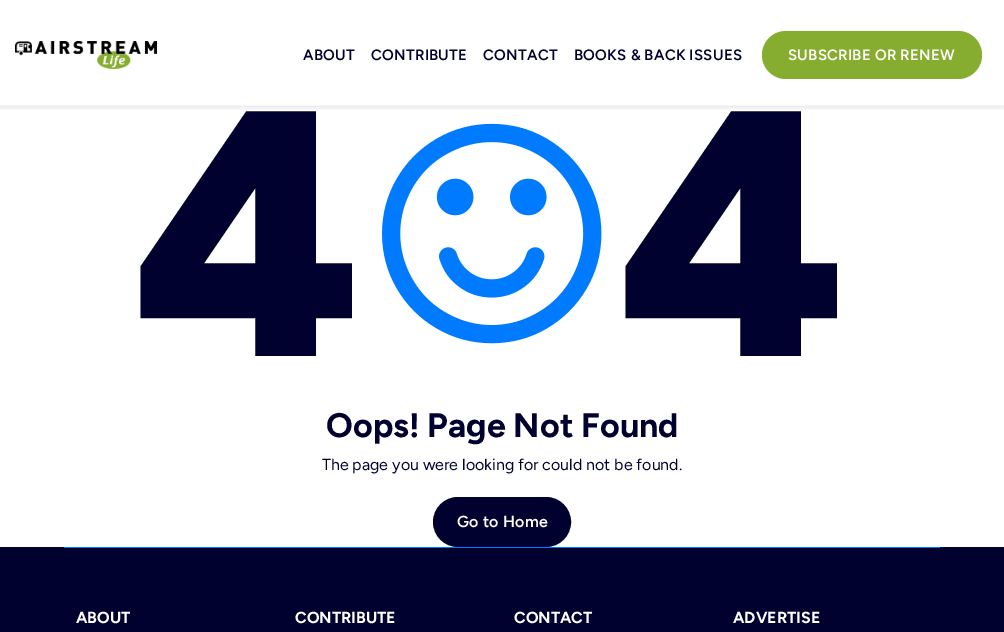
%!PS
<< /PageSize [1004 632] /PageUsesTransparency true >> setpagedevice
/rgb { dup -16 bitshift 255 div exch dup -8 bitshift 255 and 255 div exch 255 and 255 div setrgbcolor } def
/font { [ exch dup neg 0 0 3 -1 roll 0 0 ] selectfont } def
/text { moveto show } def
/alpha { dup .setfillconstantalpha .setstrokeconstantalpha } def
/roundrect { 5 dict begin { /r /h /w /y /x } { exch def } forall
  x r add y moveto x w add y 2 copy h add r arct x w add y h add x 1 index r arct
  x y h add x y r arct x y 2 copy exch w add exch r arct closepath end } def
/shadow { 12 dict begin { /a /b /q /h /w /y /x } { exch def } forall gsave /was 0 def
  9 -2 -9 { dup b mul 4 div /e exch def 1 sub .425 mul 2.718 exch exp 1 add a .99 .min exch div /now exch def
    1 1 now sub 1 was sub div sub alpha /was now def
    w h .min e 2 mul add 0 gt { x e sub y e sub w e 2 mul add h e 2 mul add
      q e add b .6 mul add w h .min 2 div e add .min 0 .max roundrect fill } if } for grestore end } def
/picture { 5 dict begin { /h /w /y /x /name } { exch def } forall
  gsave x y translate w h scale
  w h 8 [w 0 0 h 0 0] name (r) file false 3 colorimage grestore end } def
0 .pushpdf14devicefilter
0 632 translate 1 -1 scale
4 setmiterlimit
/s1 { /Figtree-Bold 34 font 16#01012F rgb } def
/s2 { /Figtree-Regular 16 font 16#01012F rgb } def
/s3 { /Figtree-Bold 16 font 16#FFFFFF rgb } def
16#FFFFFF rgb
0 0 1004 632 rectfill
gsave
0 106 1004 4 rectclip
16#000000 rgb
0 0 1004 106 0 4 0.15 shadow
grestore
16#F7F7F7 rgb
0 105 1004 1 rectfill
(pic1.raw) 15 41 142 28 picture
/Figtree-SemiBold 15 font
16#01012F rgb
303 60 moveto 0.25 0 (ABOUT) ashow
371 60 moveto 0.25 0 (CONTRIBUTE) ashow
483 60 moveto 0.25 0 (CONTACT) ashow
574 60 moveto 0.25 0 (BOOKS & BACK ISSUES) ashow
16#87AD30 rgb
762 31 220 48 24 roundrect fill
16#FFFFFF rgb
788 60 moveto 0.25 0 (SUBSCRIBE OR RENEW) ashow
/Figtree-Black 350 font
16#01012F rgb
137 356 moveto 20 0 (4) ashow
(pic2.raw) 382 123 220 221 picture
622 356 moveto 20 0 (4) ashow
s1
(Oops! Page Not Found) 326 437 text
s2
(The page you were looking for could not be found.) 322 470 text
434 498 136 48 24 roundrect gsave fill grestore
2 setlinewidth
stroke
/Figtree-SemiBold 16 font
16#FFFFFF rgb
457 527 moveto 0.25 0 (Go to Home) ashow
16#01012F rgb
0 547 1004 85 rectfill
16#007BFF rgb
64 547 876 1 rectfill
s3
(ABOUT) 76 623 text
(CONTRIBUTE) 295 623 text
(CONTACT) 514 623 text
(ADVERTISE) 733 623 text
.poppdf14devicefilter showpage
